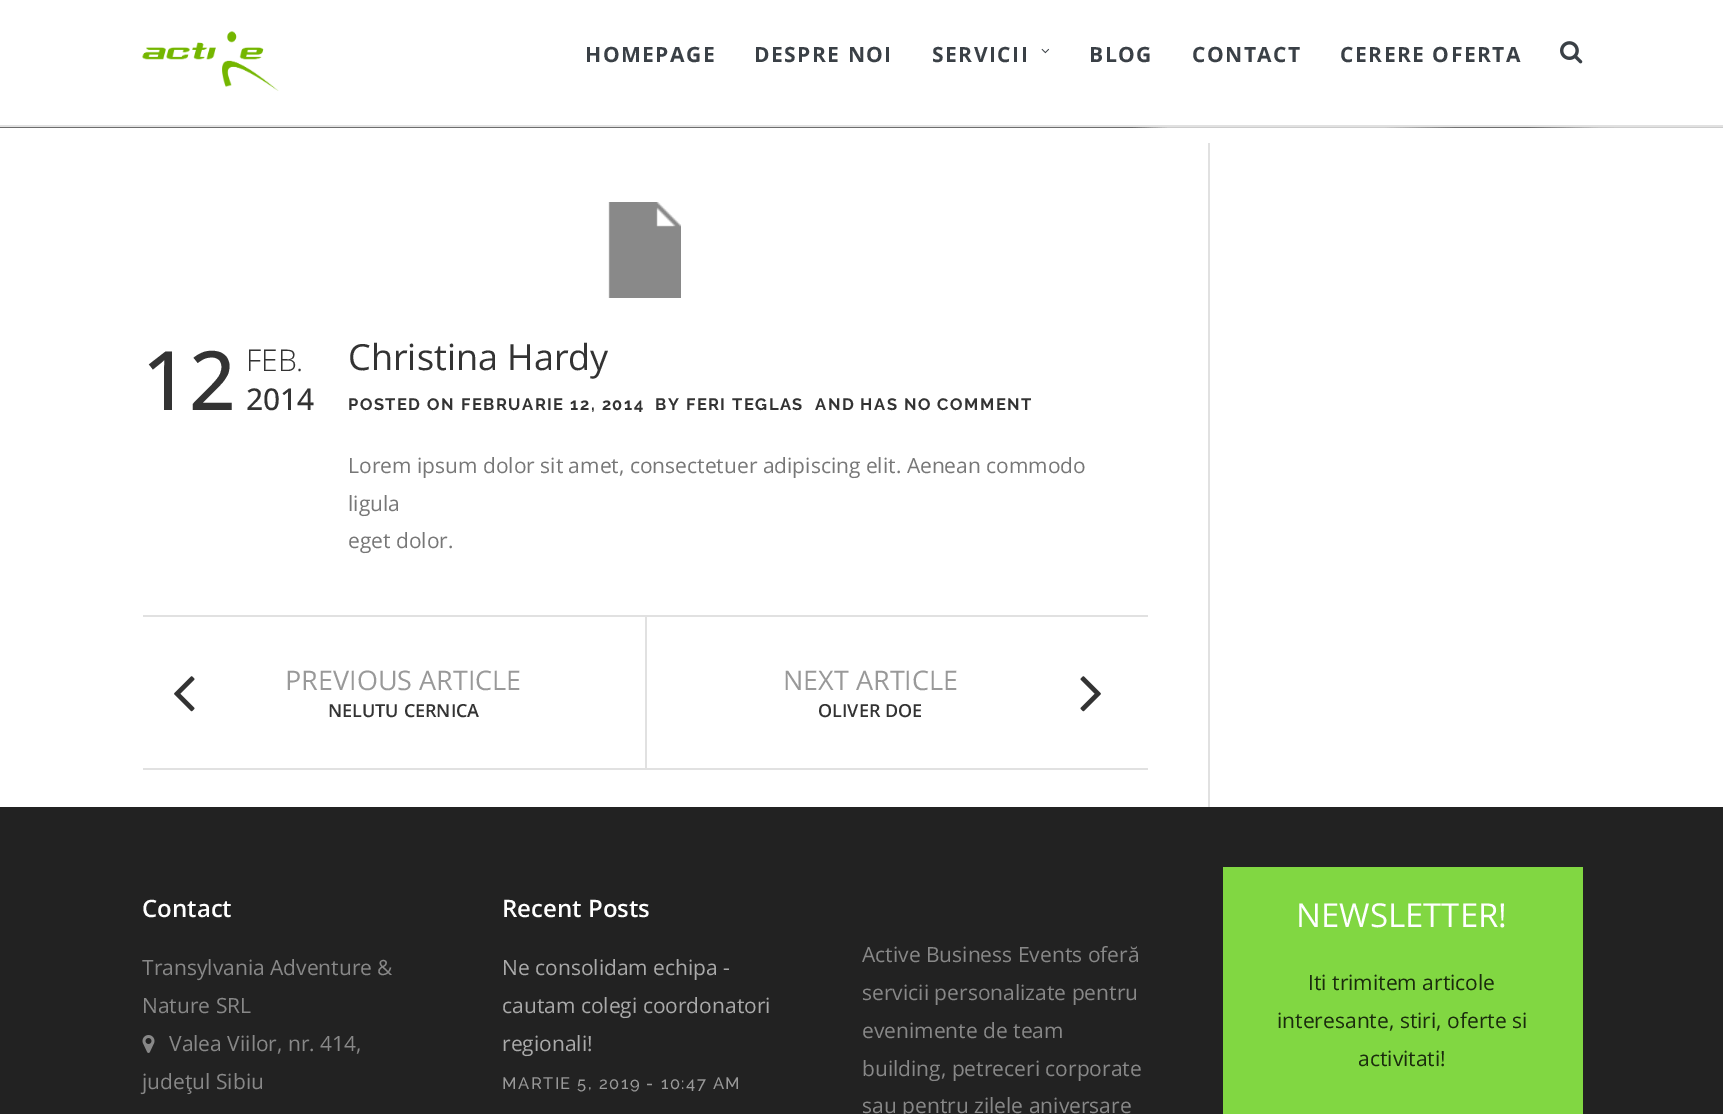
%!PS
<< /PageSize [1723 1114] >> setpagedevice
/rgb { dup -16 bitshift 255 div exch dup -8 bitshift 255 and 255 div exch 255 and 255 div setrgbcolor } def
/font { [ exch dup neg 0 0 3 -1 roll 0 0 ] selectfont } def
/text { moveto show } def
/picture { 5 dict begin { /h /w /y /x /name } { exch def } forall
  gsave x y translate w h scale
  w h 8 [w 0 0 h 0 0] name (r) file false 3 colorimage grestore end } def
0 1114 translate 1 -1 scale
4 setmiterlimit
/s1 { /OpenSans-Medium 82 font 16#333333 rgb } def
/s2 { /OpenSans-Light 30 font 16#333333 rgb } def
/s3 { /OpenSans-Medium 30 font 16#333333 rgb } def
/s4 { /OpenSans-Regular 36 font 16#333333 rgb } def
/s5 { /OpenSans-Regular 21 font 16#777777 rgb } def
/s6 { /OpenSans-Regular 27 font 16#999999 rgb } def
/s7 { /OpenSans-SemiBold 18 font 16#333333 rgb } def
/s8 { /OpenSans-SemiBold 24 font 16#FFFFFF rgb } def
/s9 { /OpenSans-Regular 21 font 16#888888 rgb } def
/s10 { /OpenSans-Regular 21 font 16#AAAAAA rgb } def
/s11 { /OpenSans-Regular 33 font 16#FFFFFF rgb } def
/s12 { /OpenSans-Regular 21 font 16#1A2B0D rgb } def
16#FFFFFF rgb
0 0 1723 1114 rectfill
16#CCCCCC rgb
1133 127 590 1 rectfill
16#E1E1E1 rgb
0 125 1723 2 rectfill
(pic1.raw) 142 31 137 60 picture
/OpenSans-Bold 21 font
16#3A4046 rgb
585 62 moveto 1.5 0 (HOMEPAGE) ashow
754 62 moveto 1.5 0 (DESPRE NOI) ashow
932 62 moveto 1.5 0 (SERVICII) ashow
(pic2.raw) 1041 48 9 6 picture
1089 62 moveto 1.5 0 (BLOG) ashow
1192 62 moveto 1.5 0 (CONTACT) ashow
1340 62 moveto 1.5 0 (CERERE OFERTA) ashow
(pic3.raw) 1560 41 23 23 picture
16#E1E1E1 rgb
1208 143 2 664 rectfill
(pic4.raw) 608 202 73 96 picture
s1
(12) 142 410 text
s2
(FEB.) 246 371 text
s3
(2014) 246 410 text
s4
(Christina Hardy) 348 370 text
/Raleway-Bold 16.5 font
348 410 moveto 1.5 0 (POSTED ON FEBRUARIE 12, 2014) ashow
655 410 moveto 1.5 0 (BY FERI TEGLAS) ashow
815 410 moveto 1.5 0 (AND HAS NO COMMENT) ashow
s5
(Lorem ipsum dolor sit amet, consectetuer adipiscing elit. Aenean commodo) 348 473 text
(ligula) 348 511 text
(eget dolor.) 348 548 text
16#E1E1E1 rgb
143 615 1005 2 rectfill
143 768 1005 2 rectfill
(pic5.raw) 174 676 21 36 picture
s6
(PREVIOUS ARTICLE) 285 690 text
s7
(NELUTU CERNICA) 328 717 text
16#E1E1E1 rgb
645 617 2 151 rectfill
s6
(NEXT ARTICLE) 783 690 text
s7
(OLIVER DOE) 818 717 text
(pic6.raw) 1080 676 21 36 picture
16#222222 rgb
0 807 1723 307 rectfill
s8
(Contact) 142 917 text
s9
(Transylvania Adventure &) 142 975 text
(Nature SRL) 142 1013 text
(pic7.raw) 142 1035 13 18 picture
(Valea Viilor, nr. 414,) 169 1051 text
(judeţul Sibiu) 142 1089 text
s8
(Recent Posts) 502 917 text
s10
(Ne consolidam echipa -) 502 975 text
(cautam colegi coordonatori) 502 1013 text
(regionali!) 502 1051 text
/Raleway-Medium 16.5 font
16#999999 rgb
502 1089 moveto 1.5 0 (MARTIE 5, 2019 - 10:47 AM) ashow
s9
(Active Business Events oferă) 862 962 text
(servicii personalizate pentru) 862 1000 text
(evenimente de team) 862 1038 text
(building, petreceri corporate) 862 1076 text
(sau pentru zilele aniversare) 862 1113 text
16#81D742 rgb
1223 867 360 247 rectfill
s11
(NEWSLETTER!) 1296 927 text
s12
(Iti trimitem articole) 1308 990 text
(interesante, stiri, oferte si) 1277 1028 text
(activitati!) 1358 1066 text
(pic8.raw) 0 127 1614 1 picture
showpage
